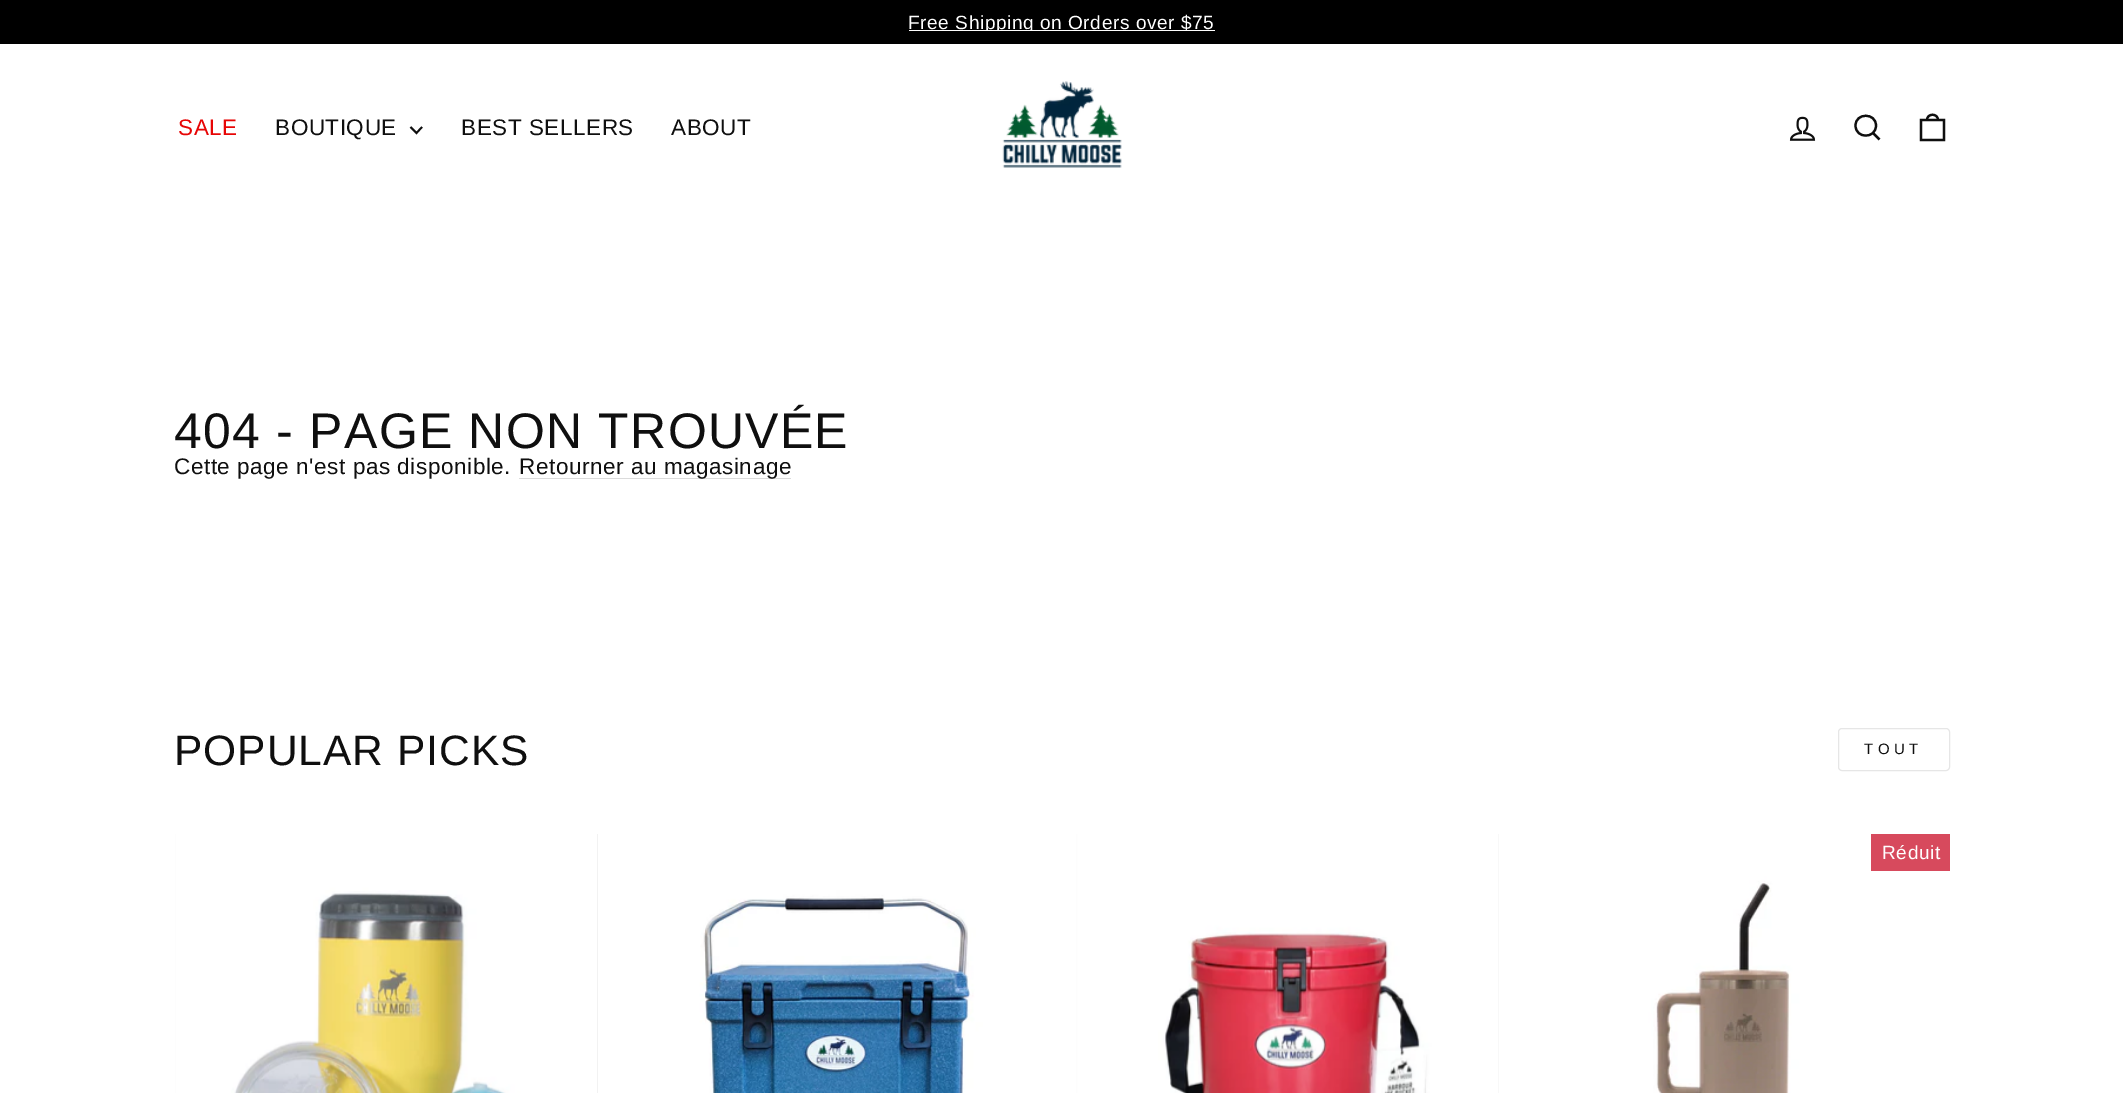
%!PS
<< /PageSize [2123 1093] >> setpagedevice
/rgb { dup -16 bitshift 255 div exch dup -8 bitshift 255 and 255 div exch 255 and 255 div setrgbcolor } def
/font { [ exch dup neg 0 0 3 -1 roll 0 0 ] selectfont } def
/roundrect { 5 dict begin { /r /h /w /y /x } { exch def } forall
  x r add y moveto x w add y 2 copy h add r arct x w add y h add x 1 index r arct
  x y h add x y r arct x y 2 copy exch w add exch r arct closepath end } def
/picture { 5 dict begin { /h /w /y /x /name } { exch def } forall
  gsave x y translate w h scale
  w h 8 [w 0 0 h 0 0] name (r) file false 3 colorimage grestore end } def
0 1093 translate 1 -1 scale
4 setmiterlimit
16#FFFFFF rgb
0 0 2123 1093 rectfill
16#000000 rgb
0 0 2123 44 rectfill
16#FFFFFF rgb
909 30 306 1 rectfill
gsave
175 13 1775 18 rectclip
/Arimo-Regular 19.1 font
908 29 moveto 0.55 0 (Free Shipping on Orders over $75) ashow
grestore
/Arimo-Regular 22.5 font
16#E70505 rgb
178 135 moveto 0.55 0 (SALE) ashow
16#0F0F0F rgb
275 135 moveto 0.55 0 (BOUTIQUE) ashow
1.8 setlinewidth
410.5 127 moveto 416.5 133 lineto 422 127 lineto stroke
461 135 moveto 0.55 0 (BEST SELLERS) ashow
671 135 moveto 0.55 0 (ABOUT) ashow
(pic1.raw) 1002 81 120 87 picture
(pic2.raw) 1789 116 27 25 picture
2.2 setlinewidth
1876 125.5 moveto 1876 139 1855.5 139 1855.5 125.5 curveto 1855.5 112.5 1876 112.5 1876 125.5 curveto closepath 1879.5 139.5 moveto 1873 133 lineto stroke
1921 120 moveto 1944 120 lineto 1944 140 lineto 1921 140 lineto closepath 1927 120 moveto 1927 113 1938 113 1938 120 curveto stroke
/Arimo-Regular 50 font
174 448 moveto 1.25 0 (404 - PAGE NON TROUVÉE) ashow
/Arimo-Regular 22.5 font
174 474 moveto 0.55 0 (Cette page n'est pas disponible.) ashow
16#DBDBDB rgb
519 478 272 1 rectfill
16#0F0F0F rgb
519 474 moveto 0.55 0 (Retourner au magasinage) ashow
/Arimo-Regular 42.5 font
174 765 moveto 1 0 (POPULAR PICKS) ashow
16#E6E6E6 rgb
1 setlinewidth
1838.5 728.5 111 42 3.5 roundrect stroke
/Arimo-Regular 15 font
16#0F0F0F rgb
1864 754 moveto 4.5 0 (TOUT) ashow
16#E6E6E6 rgb
175 834 423 259 rectfill
(pic3.raw) 175 834 423 259 picture
(pic4.raw) 625 834 424 259 picture
(pic5.raw) 1076 834 423 259 picture
(pic6.raw) 1526 834 424 259 picture
16#D74A5D rgb
1871 834 79 37 rectfill
/Arimo-Regular 19.1 font
16#FFFFFF rgb
1882 859 moveto 0.55 0 (Réduit) ashow
showpage
